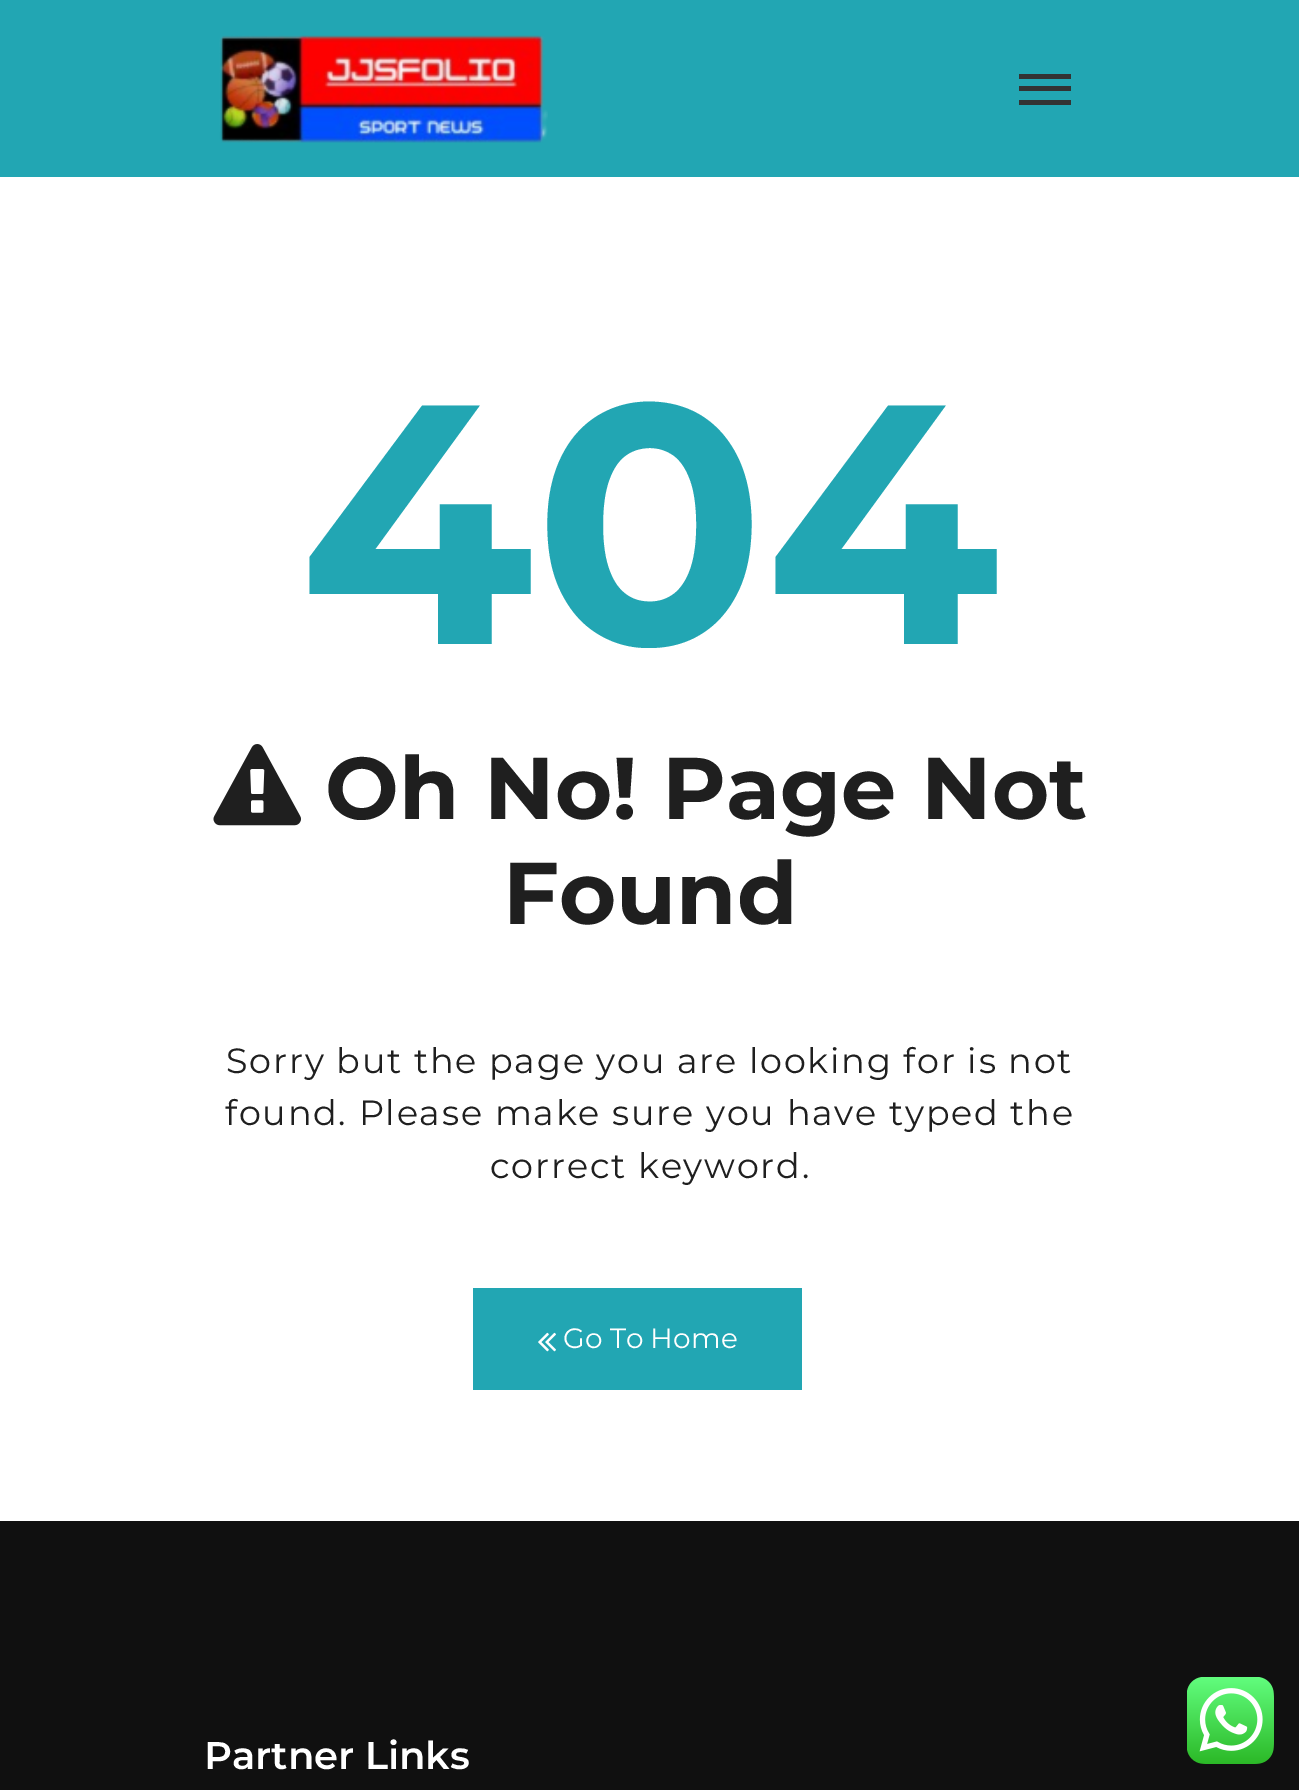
%!PS
<< /PageSize [1299 1790] >> setpagedevice
/rgb { dup -16 bitshift 255 div exch dup -8 bitshift 255 and 255 div exch 255 and 255 div setrgbcolor } def
/font { [ exch dup neg 0 0 3 -1 roll 0 0 ] selectfont } def
/text { moveto show } def
/picture { 5 dict begin { /h /w /y /x /name } { exch def } forall
  gsave x y translate w h scale
  w h 8 [w 0 0 h 0 0] name (r) file false 3 colorimage grestore end } def
0 1790 translate 1 -1 scale
4 setmiterlimit
/s1 { /Montserrat-Bold 341 font 16#22A6B3 rgb } def
/s2 { /Montserrat-Bold 87.5 font 16#1F1F1F rgb } def
/s3 { /Montserrat-Regular 28 font 16#FFFFFF rgb } def
/s4 { /Montserrat-SemiBold 38.5 font 16#FFFFFF rgb } def
16#FFFFFF rgb
0 0 1299 1790 rectfill
16#22A6B3 rgb
0 0 1299 177 rectfill
(pic1.raw) 219 35 329 108 picture
16#333333 rgb
1019 74 52 5 rectfill
1019 86 52 5 rectfill
1019 100 52 5 rectfill
s1
(404) 299 644 text
(pic2.raw) 213 744 88 82 picture
s2
(Oh No! Page Not) 325 819 text
(Found) 503 924 text
/Montserrat-Regular 35 font
226 1073 moveto 1.75 0 (Sorry but the page you are looking for is not) ashow
225 1125 moveto 1.75 0 (found. Please make sure you have typed the) ashow
490 1178 moveto 1.75 0 (correct keyword.) ashow
16#22A6B3 rgb
473 1288 329 102 rectfill
(pic3.raw) 538 1332 18 20 picture
s3
(Go To Home) 563 1348 text
16#101010 rgb
0 1521 1299 269 rectfill
s4
(Partner Links) 204 1769 text
(pic4.raw) 1187 1677 87 87 picture
showpage
